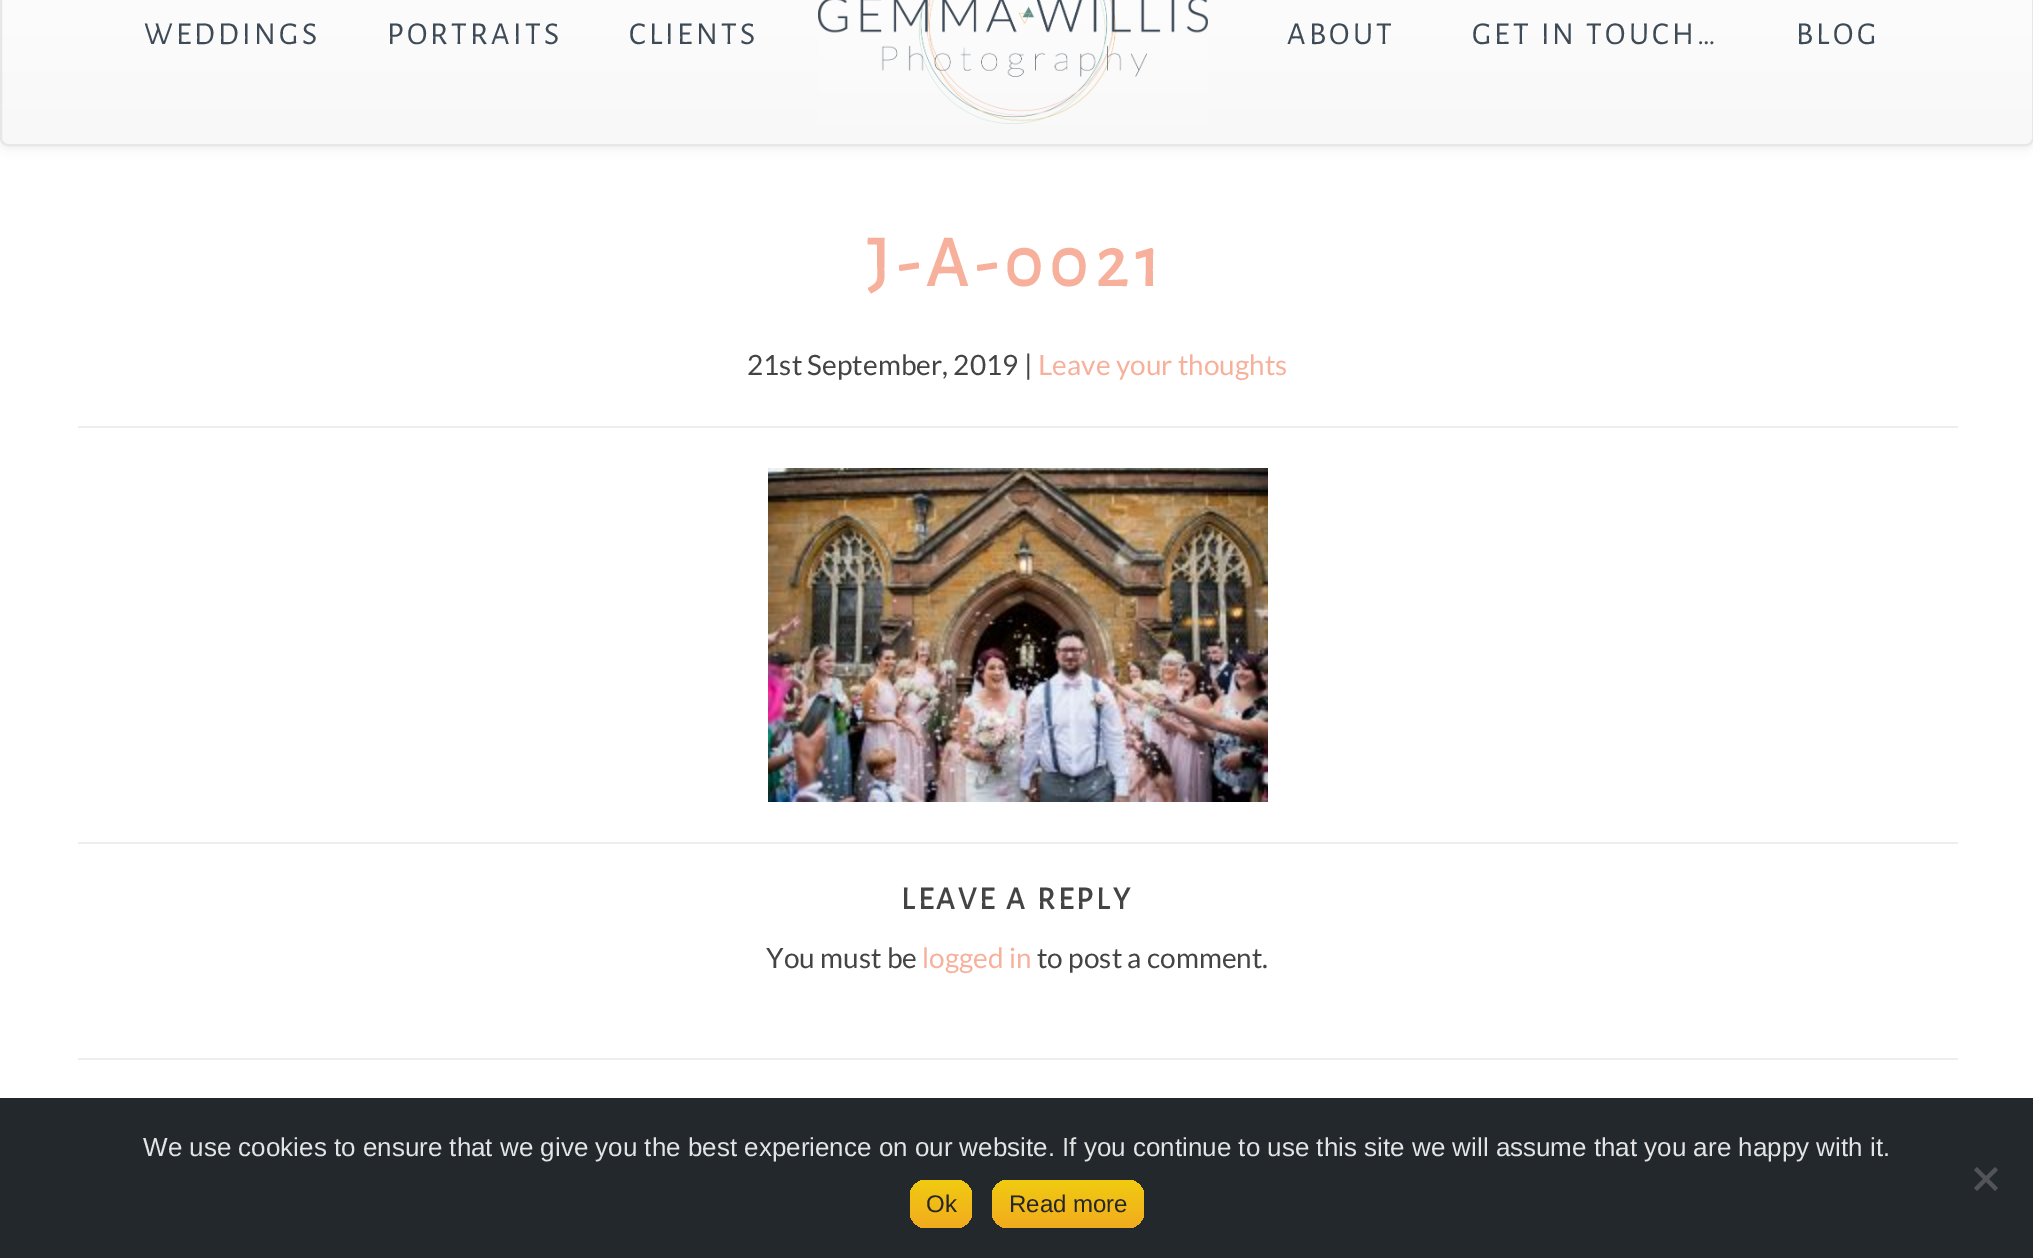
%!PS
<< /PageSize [2033 1258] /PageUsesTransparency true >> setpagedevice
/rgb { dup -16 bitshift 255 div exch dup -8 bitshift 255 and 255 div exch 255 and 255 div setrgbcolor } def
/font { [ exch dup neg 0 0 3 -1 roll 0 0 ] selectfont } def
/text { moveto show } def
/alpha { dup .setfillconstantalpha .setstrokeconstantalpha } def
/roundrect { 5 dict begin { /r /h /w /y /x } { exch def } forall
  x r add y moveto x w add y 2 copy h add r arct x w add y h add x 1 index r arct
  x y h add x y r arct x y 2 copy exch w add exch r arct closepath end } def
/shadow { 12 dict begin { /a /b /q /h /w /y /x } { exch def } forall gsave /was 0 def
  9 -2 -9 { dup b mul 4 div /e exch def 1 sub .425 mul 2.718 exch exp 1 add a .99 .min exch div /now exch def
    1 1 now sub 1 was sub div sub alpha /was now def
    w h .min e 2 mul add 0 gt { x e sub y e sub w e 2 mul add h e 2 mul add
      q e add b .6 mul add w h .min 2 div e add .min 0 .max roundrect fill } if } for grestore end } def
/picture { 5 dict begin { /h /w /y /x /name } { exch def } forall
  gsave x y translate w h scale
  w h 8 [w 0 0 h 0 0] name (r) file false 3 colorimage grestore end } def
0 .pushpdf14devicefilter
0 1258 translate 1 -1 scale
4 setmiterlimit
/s1 { /Lato-Regular 28 font 16#444444 rgb } def
/s2 { /Lato-Regular 28 font 16#F7B09B rgb } def
/s3 { /LiberationSans-Regular 26 font 16#E3E4E4 rgb } def
/s4 { /LiberationSans-Regular 24 font 16#262626 rgb } def
16#FFFFFF rgb
0 0 2033 1258 rectfill
16#000000 rgb
0 -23 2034 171 8 5 0.07 shadow
gsave
0 -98 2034 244 8 roundrect clip newpath
gsave 0 0 moveto 2033 0 lineto 2033 144 lineto 0 144 lineto closepath clip newpath
<< /ShadingType 2 /ColorSpace /DeviceRGB /Coords [1017 -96 1017 144] /Extend [true true] /Function << /FunctionType 2 /Domain [0 1] /C0 [1 1 1] /C1 [0.973 0.973 0.973] /N 1 >> >> shfill grestore
grestore
16#E7E7E7 rgb
2 setlinewidth
1 -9 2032 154 7 roundrect stroke
/AlegreyaSans-Regular 32 font
16#3E4B57 rgb
144 44 moveto 3.25 0 (WEDDINGS) ashow
387 44 moveto 3.25 0 (PORTRAITS) ashow
629 44 moveto 3.25 0 (CLIENTS) ashow
(pic1.raw) 818 0 390 124 picture
1287 44 moveto 3.25 0 (ABOUT) ashow
1472 44 moveto 3.25 0 (GET IN TOUCH…) ashow
1796 44 moveto 3.25 0 (BLOG) ashow
/AlegreyaSans-Bold 72 font
16#F7B09B rgb
867 286 moveto 7.25 0 (J-A-0021) ashow
s1
(21st September, 2019 |) 747 375 text
s2
(Leave your thoughts) 1038 375 text
16#EEEEEE rgb
78 426 1880 2 rectfill
(pic2.raw) 768 468 500 334 picture
78 842 1880 2 rectfill
/AlegreyaSans-Bold 32 font
16#444444 rgb
901 909 moveto 3.25 0 (LEAVE A REPLY) ashow
s1
(You must be) 766 968 text
s2
(logged in) 922 968 text
s1
(to post a comment.) 1037 968 text
16#EEEEEE rgb
78 1058 1880 2 rectfill
16#23282D rgb
0 1098 2033 160 rectfill
s3
(We use cookies to ensure that we give you the best experience on our website. If you continue to use this site we will assume that you are happy with it.) 143 1156 text
16#525457 rgb
1995 1167 moveto 1998 1170 lineto 1977 1191 lineto 1974 1188 lineto closepath fill
1974 1170 moveto 1977 1167 lineto 1998 1188 lineto 1995 1191 lineto closepath fill
gsave 910 1180 62 48 16 roundrect clip newpath
<< /ShadingType 2 /ColorSpace /DeviceRGB /Coords [941 1180 941 1228] /Extend [true true] /Function << /FunctionType 3 /Domain [0 1] /Functions [<< /FunctionType 2 /Domain [0 1] /C0 [0.941 0.788 0.067] /C1 [0.941 0.788 0.067] /N 1 >> << /FunctionType 2 /Domain [0 1] /C0 [0.941 0.788 0.067] /C1 [0.949 0.671 0.118] /N 1 >>] /Bounds [0.05] /Encode [0 1 0 1] >> >> shfill grestore
s4
(Ok) 926 1212 text
gsave 992 1180 152 48 16 roundrect clip newpath
<< /ShadingType 2 /ColorSpace /DeviceRGB /Coords [1068 1180 1068 1228] /Extend [true true] /Function << /FunctionType 3 /Domain [0 1] /Functions [<< /FunctionType 2 /Domain [0 1] /C0 [0.941 0.788 0.067] /C1 [0.941 0.788 0.067] /N 1 >> << /FunctionType 2 /Domain [0 1] /C0 [0.941 0.788 0.067] /C1 [0.949 0.671 0.118] /N 1 >>] /Bounds [0.05] /Encode [0 1 0 1] >> >> shfill grestore
(Read more) 1009 1212 text
.poppdf14devicefilter showpage
